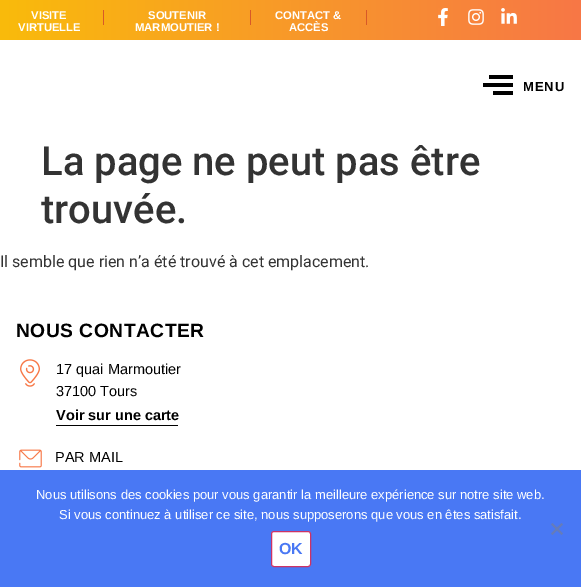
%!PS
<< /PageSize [581 587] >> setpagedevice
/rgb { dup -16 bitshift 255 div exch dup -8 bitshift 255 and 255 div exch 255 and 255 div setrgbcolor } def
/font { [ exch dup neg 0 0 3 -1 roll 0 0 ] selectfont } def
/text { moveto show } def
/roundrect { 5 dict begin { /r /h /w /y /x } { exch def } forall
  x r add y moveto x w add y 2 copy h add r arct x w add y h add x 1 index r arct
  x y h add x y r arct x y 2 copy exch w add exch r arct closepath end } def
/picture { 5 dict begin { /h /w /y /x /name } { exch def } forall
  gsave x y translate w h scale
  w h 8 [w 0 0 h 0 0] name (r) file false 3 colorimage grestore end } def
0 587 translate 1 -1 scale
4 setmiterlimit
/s1 { /LiberationSans-Bold 11.25 font 16#FFFFFF rgb } def
/s2 { /Roboto-Medium 40 font 16#333333 rgb } def
/s3 { /Roboto-Regular 16 font 16#333333 rgb } def
/s4 { /LiberationSans-Regular 14.5 font 16#000000 rgb } def
/s5 { /LiberationSans-Bold 14.5 font 16#000000 rgb } def
/s6 { /LiberationSans-Regular 13 font 16#FFFFFF rgb } def
/s7 { /LiberationSans-Bold 16 font 16#4978F4 rgb } def
16#FFFFFF rgb
0 0 581 587 rectfill
gsave 0 0 moveto 581 0 lineto 581 40 lineto 0 40 lineto closepath clip newpath
<< /ShadingType 2 /ColorSpace /DeviceRGB /Coords [0 20 581 20] /Extend [true true] /Function << /FunctionType 2 /Domain [0 1] /C0 [0.98 0.733 0.043] /C1 [0.969 0.467 0.275] /N 1 >> >> shfill grestore
s1
(VISITE) 31 19 text
(VIRTUELLE) 18 31 text
16#D85928 rgb
103 10 1 15 rectfill
s1
(SOUTENIR) 148 19 text
(MARMOUTIER !) 135 31 text
16#D85928 rgb
250 10 1 15 rectfill
s1
(CONTACT &) 275 19 text
(ACCÈS) 289 31 text
16#D85928 rgb
366 10 1 15 rectfill
(pic1.raw) 438 8 10 18 picture
(pic2.raw) 468 9 16 16 picture
(pic3.raw) 501 8 16 16 picture
16#000000 rgb
489 75 24 4 rectfill
483 83 30 4 rectfill
493 91 20 4 rectfill
/LiberationSans-Bold 13 font
523 91 moveto 1 0 (MENU) ashow
s2
(La page ne peut pas être) 41 175 text
(trouvée.) 41 223 text
s3
(Il semble que rien n’a été trouvé à cet emplacement.) 0 267 text
/LiberationSans-Bold 19.25 font
16#000000 rgb
16 337 moveto 0.5 0 (NOUS CONTACTER) ashow
(pic4.raw) 20 359 20 28 picture
s4
(17 quai Marmoutier) 56 374 text
(37100 Tours) 56 396 text
56 425 122 1 rectfill
s5
(Voir sur une carte) 56 420 text
(pic5.raw) 19 449 23 19 picture
s4
(PAR MAIL) 55 462 text
16#4978F4 rgb
0 470 581 117 rectfill
s6
(Nous utilisons des cookies pour vous garantir la meilleure expérience sur notre site web.) 36 499 text
(Si vous continuez à utiliser ce site, nous supposerons que vous en êtes satisfait.) 59 519 text
16#657CBA rgb
561.5 523 moveto 563 524.5 lineto 552.5 535 lineto 551 533.5 lineto closepath fill
551 524.5 moveto 552.5 523 lineto 563 533.5 lineto 561.5 535 lineto closepath fill
16#FFFFFF rgb
271.5 531.5 39 35 2.5 roundrect gsave fill grestore
16#CC3366 rgb
stroke
s7
(OK) 279 554 text
showpage
